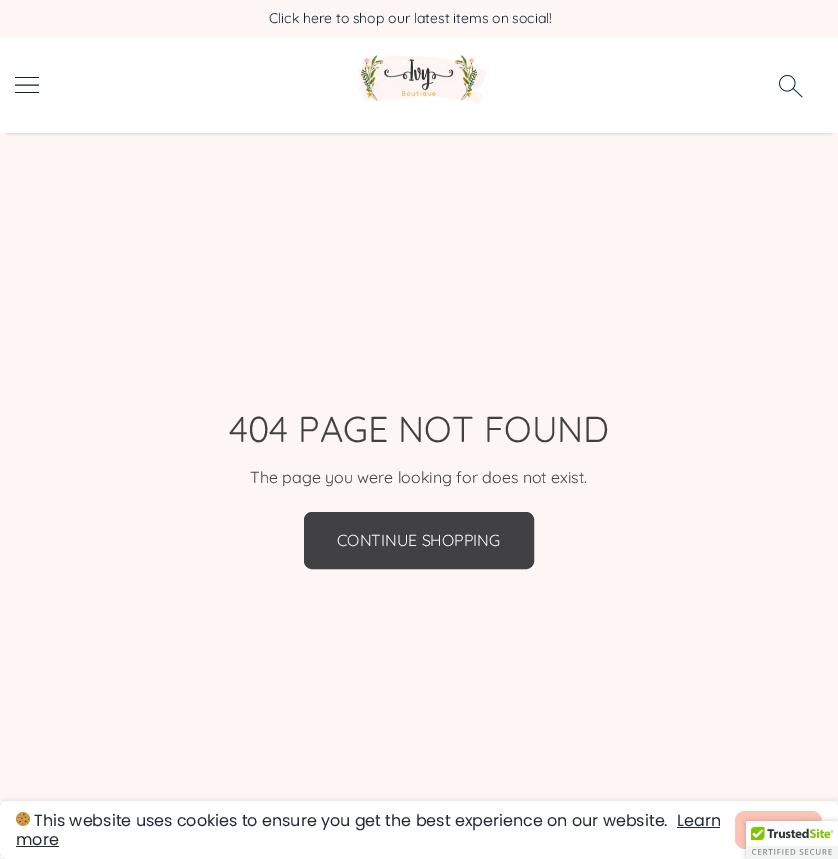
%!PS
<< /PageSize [838 859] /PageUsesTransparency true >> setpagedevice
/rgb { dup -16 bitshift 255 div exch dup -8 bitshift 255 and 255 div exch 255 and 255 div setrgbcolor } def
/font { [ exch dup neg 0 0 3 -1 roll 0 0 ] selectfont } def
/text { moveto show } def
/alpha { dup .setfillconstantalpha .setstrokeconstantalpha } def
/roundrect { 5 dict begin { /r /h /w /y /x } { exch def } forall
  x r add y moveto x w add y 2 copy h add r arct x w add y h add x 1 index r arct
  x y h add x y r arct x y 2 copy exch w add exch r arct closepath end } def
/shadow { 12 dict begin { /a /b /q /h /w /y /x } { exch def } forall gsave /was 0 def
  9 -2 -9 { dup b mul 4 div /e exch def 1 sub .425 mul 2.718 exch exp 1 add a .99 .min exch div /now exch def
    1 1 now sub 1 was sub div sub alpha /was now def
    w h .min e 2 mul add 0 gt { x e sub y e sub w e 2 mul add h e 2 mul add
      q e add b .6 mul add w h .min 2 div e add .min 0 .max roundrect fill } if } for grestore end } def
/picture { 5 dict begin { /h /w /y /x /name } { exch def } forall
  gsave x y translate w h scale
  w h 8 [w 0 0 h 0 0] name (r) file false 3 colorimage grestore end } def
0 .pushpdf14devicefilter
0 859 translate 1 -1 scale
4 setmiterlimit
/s1 { /Quicksand-Regular 14 font 16#042436 rgb } def
/s2 { /Quicksand-Regular 36 font 16#414042 rgb } def
/s3 { /Quicksand-Regular 16 font 16#414042 rgb } def
/s4 { /Quicksand-Regular 16 font 16#FFFFFF rgb } def
/s5 { /Poppins-Regular 16 font 16#212B36 rgb } def
16#FEF6F4 rgb
0 0 838 859 rectfill
s1
(Click here to shop our latest items on social!) 269 23 text
16#000000 rgb
7 48 824 82 0 2.5 1 shadow
16#FFFFFF rgb
0 37 838 96 rectfill
16#042436 rgb
15 77 24 1 rectfill
15 85 moveto 39 85 lineto stroke
15 92 24 1 rectfill
(pic1.raw) 356 55 131 50 picture
(pic2.raw) 779 75 24 23 picture
s2
(404 PAGE NOT FOUND) 229 442 text
s3
(The page you were looking for does not exist.) 250 483 text
304.5 512.5 229 56 7.5 roundrect gsave fill grestore
stroke
s4
(CONTINUE SHOPPING) 337 546 text
0 801 838 58 rectfill
gsave
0 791 moveto 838 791 lineto 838 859 lineto 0 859 lineto closepath 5 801 moveto 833 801 lineto 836 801 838 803 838 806 curveto 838 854 lineto 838 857 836 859 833 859 curveto 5 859 lineto 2 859 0 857 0 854 curveto 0 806 lineto 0 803 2 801 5 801 curveto closepath eoclip newpath
16#000000 rgb
0 801 838 58 5 3 0.12 shadow
grestore
(pic3.raw) 16 812 14 14 picture
s5
(This website uses cookies to ensure you get the best experience on our website.) 34 826 text
(Learn) 677 826 text
677 827 43 1 rectfill
(more) 16 845 text
16 846 43 1 rectfill
16#FBC4B4 rgb
735 811 87 38 10 roundrect fill
16#000000 rgb
746 821 92 38 2 2.5 0.2 shadow
16#FFFFFF rgb
748 821 moveto 838 821 lineto 838 859 lineto 746 859 lineto 746 823 lineto 746 822 747 821 748 821 curveto closepath fill
(pic4.raw) 746 821 92 38 picture
.poppdf14devicefilter showpage
